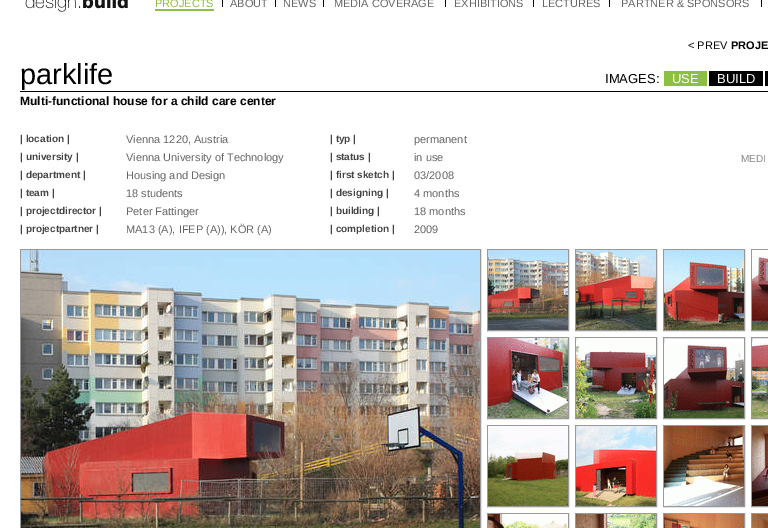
%!PS
<< /PageSize [768 528] >> setpagedevice
/rgb { dup -16 bitshift 255 div exch dup -8 bitshift 255 and 255 div exch 255 and 255 div setrgbcolor } def
/font { [ exch dup neg 0 0 3 -1 roll 0 0 ] selectfont } def
/text { moveto show } def
/picture { 5 dict begin { /h /w /y /x /name } { exch def } forall
  gsave x y translate w h scale
  w h 8 [w 0 0 h 0 0] name (r) file false 3 colorimage grestore end } def
0 528 translate 1 -1 scale
4 setmiterlimit
/s1 { /LiberationSans-Regular 11 font 16#8CBF42 rgb } def
/s2 { /LiberationSans-Regular 11 font 16#666666 rgb } def
/s3 { /LiberationSans-Regular 29 font 16#000000 rgb } def
/s4 { /LiberationSans-Regular 11 font 16#000000 rgb } def
/s5 { /LiberationSans-Bold 11 font 16#000000 rgb } def
/s6 { /LiberationSans-Regular 13 font 16#000000 rgb } def
/s7 { /LiberationSans-Regular 13 font 16#FFFFFF rgb } def
/s8 { /LiberationSans-Bold 12 font 16#000000 rgb } def
/s9 { /LiberationSans-Bold 10 font 16#444444 rgb } def
/s10 { /LiberationSans-Regular 10 font 16#888888 rgb } def
16#FFFFFF rgb
0 0 768 528 rectfill
(pic1.raw) 25 0 103 12 picture
16#000000 rgb
222 0 1 7 rectfill
s1
(PROJECTS) 155 7 text
155 9 59 2 rectfill
16#000000 rgb
275 0 1 7 rectfill
s2
(ABOUT) 230 7 text
16#000000 rgb
323 0 1 7 rectfill
s2
(NEWS) 283 7 text
16#000000 rgb
445 0 1 7 rectfill
s2
(MEDIA COVERAGE) 334 7 text
16#000000 rgb
533 0 1 7 rectfill
s2
(EXHIBITIONS) 454 7 text
16#000000 rgb
609 0 1 7 rectfill
s2
(LECTURES) 542 7 text
16#000000 rgb
761 0 1 7 rectfill
s2
(PARTNER & SPONSORS) 621 7 text
16#000000 rgb
20 91 748 1 rectfill
s3
(parklife) 20 84 text
s4
(< PREV) 688 49 text
s5
(PROJE) 731 49 text
s6
(IMAGES:) 605 83 text
16#8CBF42 rgb
664 71 43 15 rectfill
s7
(USE) 672 83 text
16#000000 rgb
709 71 54 15 rectfill
s7
(BUILD) 717 83 text
16#000000 rgb
765 71 3 15 rectfill
s8
(Multi-functional house for a child care center) 20 105 text
s9
(| location |) 20 142 text
s2
(Vienna 1220, Austria) 126 143 text
s9
(| typ |) 330 142 text
s2
(permanent) 414 143 text
s9
(| university |) 20 160 text
s2
(Vienna University of Technology) 126 161 text
s9
(| status |) 330 160 text
s2
(in use) 414 161 text
s9
(| department |) 20 178 text
s2
(Housing and Design) 126 179 text
s9
(| first sketch |) 330 178 text
s2
(03/2008) 414 179 text
s9
(| team |) 20 196 text
s2
(18 students) 126 197 text
s9
(| designing |) 330 196 text
s2
(4 months) 414 197 text
s9
(| projectdirector |) 20 214 text
s2
(Peter Fattinger) 126 215 text
s9
(| building |) 330 214 text
s2
(18 months) 414 215 text
s9
(| projectpartner |) 20 232 text
s2
(MA13 \(A\), IFEP \(A\)\), KÖR \(A\)) 126 233 text
s9
(| completion |) 330 232 text
s2
(2009) 414 233 text
s10
(MEDI) 741 162 text
16#999999 rgb
20.5 249.5 460 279 rectstroke
(pic2.raw) 21 250 459 278 picture
487.5 249.5 81 81 rectstroke
(pic3.raw) 488 250 80 80 picture
575.5 249.5 81 81 rectstroke
(pic4.raw) 576 250 80 80 picture
663.5 249.5 81 81 rectstroke
(pic5.raw) 664 250 80 80 picture
751.5 249.5 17 81 rectstroke
(pic6.raw) 752 250 16 80 picture
487.5 337.5 81 81 rectstroke
(pic7.raw) 488 338 80 80 picture
575.5 337.5 81 81 rectstroke
(pic8.raw) 576 338 80 80 picture
663.5 337.5 81 81 rectstroke
(pic9.raw) 664 343 80 75 picture
751.5 337.5 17 81 rectstroke
(pic10.raw) 752 342 16 76 picture
487.5 425.5 81 81 rectstroke
(pic11.raw) 488 426 80 80 picture
575.5 425.5 81 81 rectstroke
(pic12.raw) 576 426 80 80 picture
663.5 425.5 81 81 rectstroke
(pic13.raw) 664 426 80 80 picture
751.5 425.5 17 81 rectstroke
(pic14.raw) 752 426 16 80 picture
487.5 513.5 81 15 rectstroke
(pic15.raw) 488 514 80 14 picture
575.5 513.5 81 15 rectstroke
(pic16.raw) 576 514 80 14 picture
663.5 513.5 81 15 rectstroke
(pic17.raw) 664 514 80 14 picture
751.5 513.5 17 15 rectstroke
(pic18.raw) 752 514 16 14 picture
showpage
